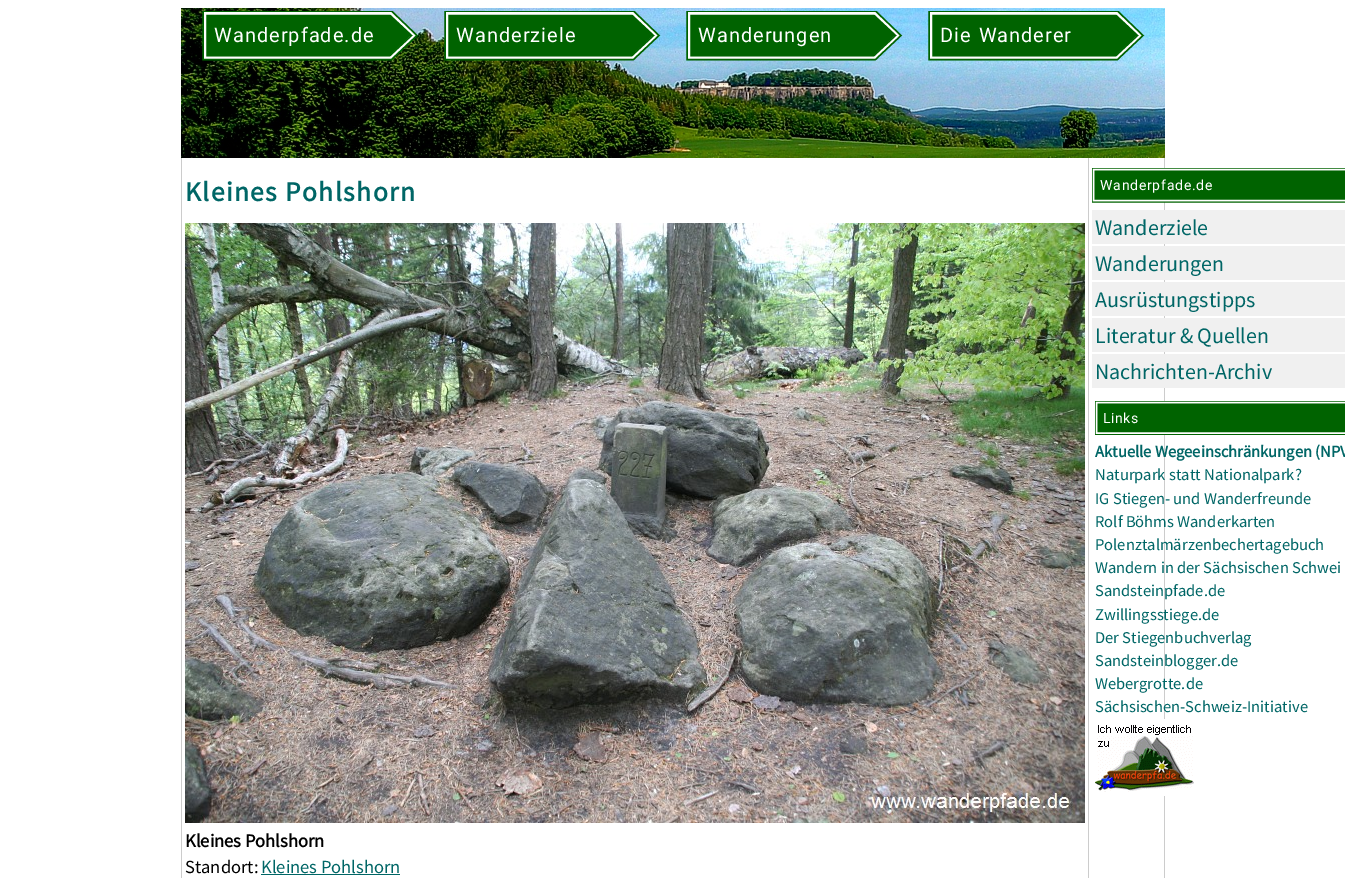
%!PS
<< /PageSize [1345 878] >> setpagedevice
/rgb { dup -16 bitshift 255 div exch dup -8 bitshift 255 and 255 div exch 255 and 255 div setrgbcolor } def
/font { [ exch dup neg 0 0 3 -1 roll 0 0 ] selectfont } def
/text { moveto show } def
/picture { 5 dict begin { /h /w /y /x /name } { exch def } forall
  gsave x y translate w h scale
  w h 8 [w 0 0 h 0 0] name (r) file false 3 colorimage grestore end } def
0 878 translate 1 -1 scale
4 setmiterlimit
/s1 { /SourceSansPro-Bold 18.5 font 16#000000 rgb } def
/s2 { /SourceSansPro-Regular 18.5 font 16#000000 rgb } def
/s3 { /SourceSansPro-Regular 18.5 font 16#006666 rgb } def
/s4 { /SourceSansPro-Regular 22 font 16#006666 rgb } def
/s5 { /SourceSansPro-Bold 16.5 font 16#006666 rgb } def
/s6 { /SourceSansPro-Regular 16.5 font 16#006666 rgb } def
16#FFFFFF rgb
0 0 1345 878 rectfill
(pic1.raw) 181 8 984 150 picture
203 11 moveto 391 11 lineto 417 35 lineto 391 60 lineto 203 60 lineto closepath fill
gsave
194 11 232 50 rectclip
16#006300 rgb
1.4 setlinewidth
203 11 moveto 391.5 11 lineto 417 35.5 lineto 391.5 59.5 lineto 203 59.5 lineto closepath stroke
grestore
16#006300 rgb
207 15 moveto 390 15 lineto 411 35 lineto 390 55 lineto 207 55 lineto closepath fill
1.4 setlinewidth
207 15.5 moveto 390 15.5 lineto 411.5 35.5 lineto 390 55.5 lineto 207 55.5 lineto closepath stroke
/Roboto-Regular 20 font
16#FFFFFF rgb
214 42 moveto 1 0 (Wanderpfade.de) ashow
445 11 moveto 633 11 lineto 659 35 lineto 633 60 lineto 445 60 lineto closepath fill
gsave
436 11 232 50 rectclip
16#006300 rgb
445 11 moveto 633.5 11 lineto 659 35.5 lineto 633.5 59.5 lineto 445 59.5 lineto closepath stroke
grestore
16#006300 rgb
449 15 moveto 632 15 lineto 653 35 lineto 632 55 lineto 449 55 lineto closepath fill
449 15.5 moveto 632 15.5 lineto 653.5 35.5 lineto 632 55.5 lineto 449 55.5 lineto closepath stroke
16#FFFFFF rgb
456 42 moveto 1 0 (Wanderziele) ashow
687 11 moveto 875 11 lineto 901 35 lineto 875 60 lineto 687 60 lineto closepath fill
gsave
678 11 232 50 rectclip
16#006300 rgb
687 11 moveto 875.5 11 lineto 901 35.5 lineto 875.5 59.5 lineto 687 59.5 lineto closepath stroke
grestore
16#006300 rgb
691 15 moveto 874 15 lineto 895 35 lineto 874 55 lineto 691 55 lineto closepath fill
691 15.5 moveto 874 15.5 lineto 895.5 35.5 lineto 874 55.5 lineto 691 55.5 lineto closepath stroke
16#FFFFFF rgb
698 42 moveto 1 0 (Wanderungen) ashow
929 11 moveto 1117 11 lineto 1143 35 lineto 1117 60 lineto 929 60 lineto closepath fill
gsave
920 11 232 50 rectclip
16#006300 rgb
929 11 moveto 1117.5 11 lineto 1143 35.5 lineto 1117.5 59.5 lineto 929 59.5 lineto closepath stroke
grestore
16#006300 rgb
933 15 moveto 1116 15 lineto 1137 35 lineto 1116 55 lineto 933 55 lineto closepath fill
933 15.5 moveto 1116 15.5 lineto 1137.5 35.5 lineto 1116 55.5 lineto 933 55.5 lineto closepath stroke
16#FFFFFF rgb
940 42 moveto 1 0 32 1 0 (Die Wanderer) awidthshow
16#CCCCCC rgb
1164 158 1 720 rectfill
1088 158 1 720 rectfill
181 158 1 720 rectfill
/SourceSansPro-Bold 27.5 font
16#006666 rgb
185 201 moveto 1.4 0 (Kleines Pohlshorn) ashow
(pic2.raw) 185 223 900 600 picture
s1
(Kleines Pohlshorn) 185 847 text
s2
(Standort:) 185 873 text
s3
(Kleines Pohlshorn) 261 873 text
261 874 139 1 rectfill
16#FFFFFF rgb
1092 168 moveto 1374 168 lineto 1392 185 lineto 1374 202 lineto 1092 202 lineto closepath eofill
gsave
1092 168 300 35 rectclip
16#006300 rgb
1 setlinewidth
1092 168 moveto 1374 168 lineto 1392 185 lineto 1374 202 lineto 1092 202 lineto closepath stroke
grestore
16#006300 rgb
1095 171 moveto 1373 171 lineto 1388 185 lineto 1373 199 lineto 1095 199 lineto closepath gsave eofill grestore
1 setlinewidth
stroke
/Roboto-Regular 14 font
16#FFFFFF rgb
1100 190 moveto 0.75 0 (Wanderpfade.de) ashow
16#F0F0F0 rgb
1092 210 253 34 rectfill
s4
(Wanderziele) 1095 235 text
16#F0F0F0 rgb
1092 246 253 34 rectfill
s4
(Wanderungen) 1095 271 text
16#F0F0F0 rgb
1092 282 253 34 rectfill
s4
(Ausrüstungstipps) 1095 307 text
16#F0F0F0 rgb
1092 318 253 34 rectfill
s4
(Literatur & Quellen) 1095 343 text
16#F0F0F0 rgb
1092 354 253 34 rectfill
s4
(Nachrichten-Archiv) 1095 379 text
16#FFFFFF rgb
1095 401 moveto 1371 401 lineto 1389 418 lineto 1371 434 lineto 1095 434 lineto closepath eofill
gsave
1095 401 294 34 rectclip
16#006300 rgb
1095 401 moveto 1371.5 401 lineto 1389 417.5 lineto 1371.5 434.5 lineto 1095 434.5 lineto closepath stroke
grestore
16#006300 rgb
1098 404 moveto 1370 404 lineto 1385 418 lineto 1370 431 lineto 1098 431 lineto closepath eofill
1098 404 moveto 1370.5 404 lineto 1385 417.5 lineto 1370.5 431.5 lineto 1098 431.5 lineto closepath stroke
/Roboto-Regular 14 font
16#FFFFFF rgb
1103 423 moveto 0.5 0 (Links) ashow
s5
(Aktuelle Wegeeinschränkungen \(NPV) 1095 457 text
s6
(Naturpark statt Nationalpark?) 1095 480 text
(IG Stiegen- und Wanderfreunde) 1095 504 text
(Rolf Böhms Wanderkarten) 1095 527 text
(Polenztalmärzenbechertagebuch) 1095 550 text
(Wandern in der Sächsischen Schwei) 1095 573 text
(Sandsteinpfade.de) 1095 596 text
(Zwillingsstiege.de) 1095 620 text
(Der Stiegenbuchverlag) 1095 643 text
(Sandsteinblogger.de) 1095 666 text
(Webergrotte.de) 1095 689 text
(Sächsischen-Schweiz-Initiative) 1095 712 text
(pic3.raw) 1095 719 99 77 picture
showpage
